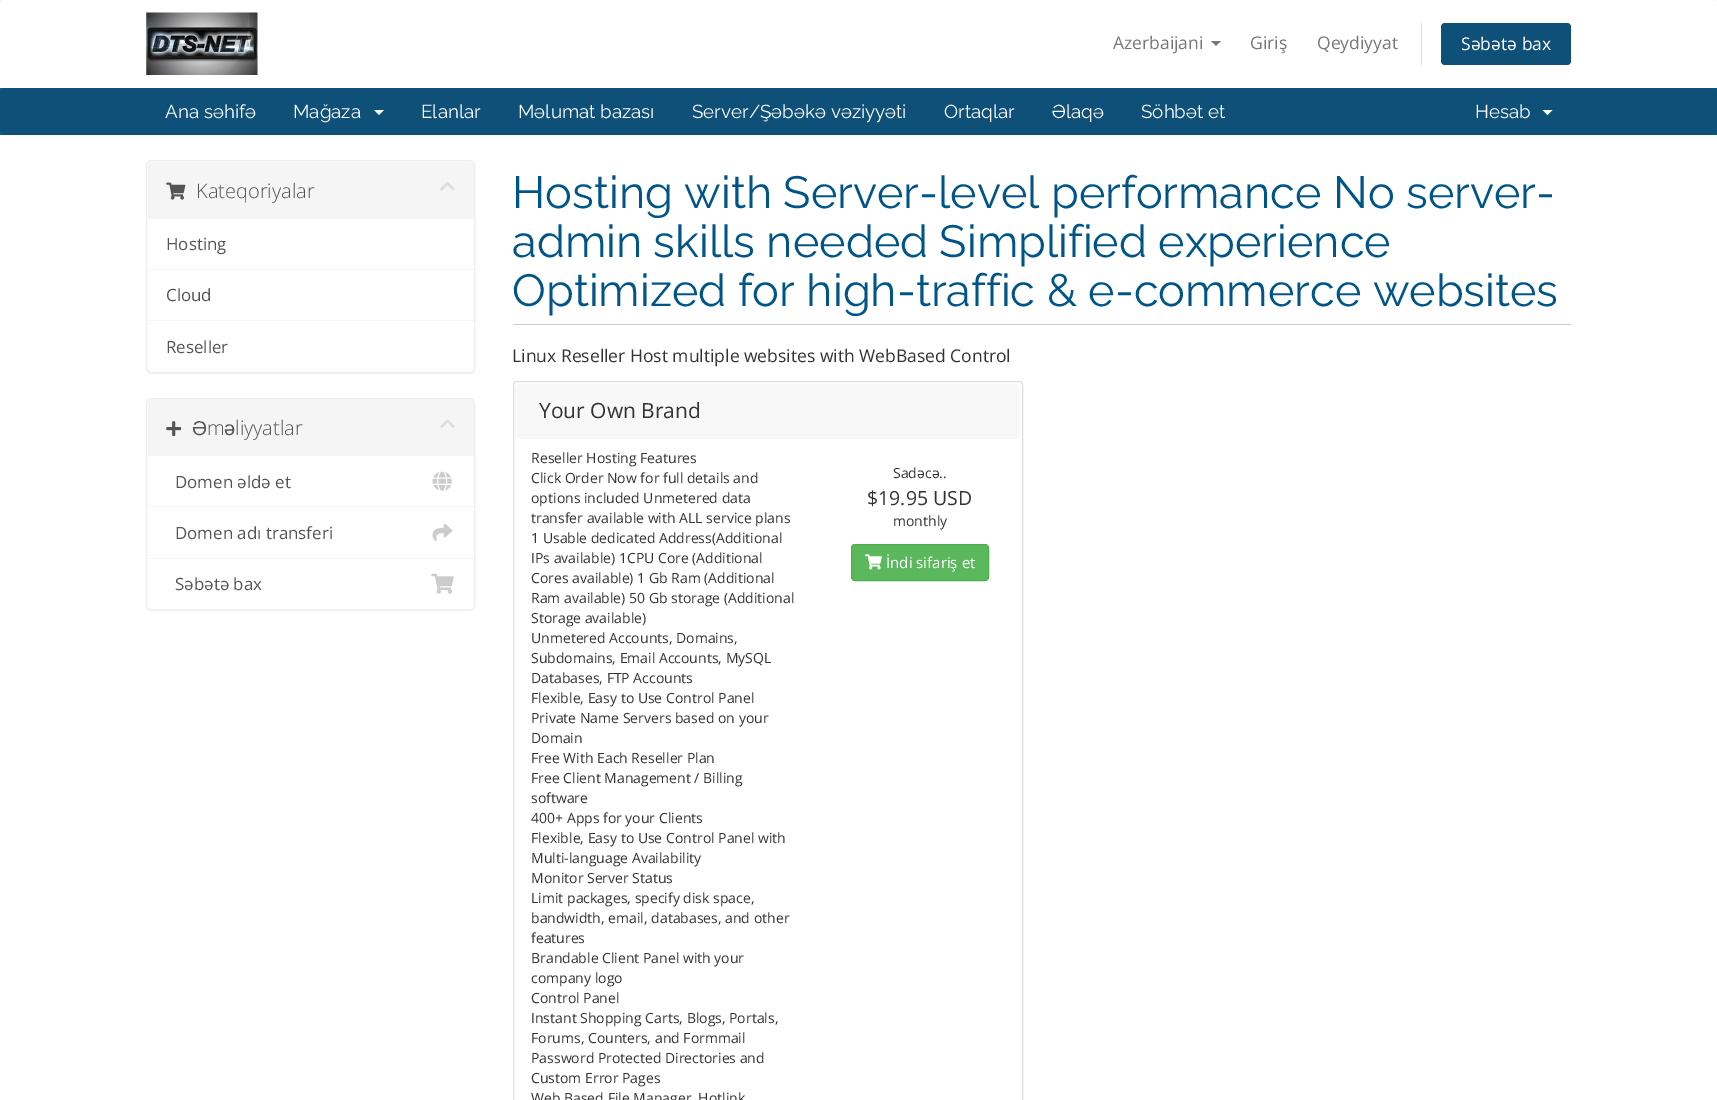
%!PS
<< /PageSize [1717 1100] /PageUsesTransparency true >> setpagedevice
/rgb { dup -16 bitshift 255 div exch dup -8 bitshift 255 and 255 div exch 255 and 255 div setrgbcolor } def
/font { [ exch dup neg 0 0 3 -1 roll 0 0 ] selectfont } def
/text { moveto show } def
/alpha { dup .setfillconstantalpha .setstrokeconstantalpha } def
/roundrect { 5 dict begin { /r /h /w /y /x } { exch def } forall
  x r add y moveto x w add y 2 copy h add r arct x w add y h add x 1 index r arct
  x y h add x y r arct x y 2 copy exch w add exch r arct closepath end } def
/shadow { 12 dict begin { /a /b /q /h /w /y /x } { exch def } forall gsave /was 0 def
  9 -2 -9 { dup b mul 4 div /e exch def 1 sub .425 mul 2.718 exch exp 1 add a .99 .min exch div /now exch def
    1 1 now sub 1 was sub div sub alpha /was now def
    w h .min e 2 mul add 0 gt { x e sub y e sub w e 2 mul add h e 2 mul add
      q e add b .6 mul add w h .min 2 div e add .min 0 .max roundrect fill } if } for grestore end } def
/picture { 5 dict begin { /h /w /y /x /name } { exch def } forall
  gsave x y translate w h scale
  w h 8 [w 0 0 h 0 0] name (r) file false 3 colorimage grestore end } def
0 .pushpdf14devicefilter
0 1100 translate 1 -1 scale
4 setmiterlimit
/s1 { /OpenSans-Regular 17.5 font 16#777777 rgb } def
/s2 { /OpenSans-Regular 17.5 font 16#FFFFFF rgb } def
/s3 { /Raleway-Regular 18.75 font 16#FFFFFF rgb } def
/s4 { /OpenSans-Light 20 font 16#555555 rgb } def
/s5 { /OpenSans-Regular 16.9 font 16#555555 rgb } def
/s6 { /LiberationSans-Regular 20 font 16#555555 rgb } def
/s7 { /Raleway-Regular 45 font 16#005588 rgb } def
/s8 { /OpenSans-Regular 17.5 font 16#333333 rgb } def
/s9 { /OpenSans-Regular 21 font 16#333333 rgb } def
/s10 { /OpenSans-Regular 14 font 16#333333 rgb } def
/s11 { /OpenSans-Regular 19.5 font 16#333333 rgb } def
/s12 { /OpenSans-Regular 15 font 16#FFFFFF rgb } def
16#F8F8F8 rgb
0 0 1717 1100 rectfill
16#FFFFFF rgb
6 0 moveto 1712 0 lineto 1715.5 0 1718 2.5 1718 6 curveto 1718 88 lineto 0 88 lineto 0 6 lineto 0 2.5 2.5 0 6 0 curveto closepath fill
(pic1.raw) 146 12 112 63 picture
s1
(Azerbaijani) 1113 49 text
1211 41 moveto 1221 41 lineto 1216 46 lineto closepath fill
(Giriş) 1250 49 text
(Qeydiyyat) 1317 49 text
16#DDDDDD rgb
1421 23 1 42 rectfill
16#0E5077 rgb
1441 23 130 42 4 roundrect fill
s2
(Səbətə bax) 1461 50 text
16#006687 rgb
0 88 1717 47 rectfill
16#0E5077 rgb
0 88 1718 47 5 roundrect fill
s3
(Ana səhifə) 165 118 text
(Mağaza) 293 118 text
374 110 moveto 384 110 lineto 379 115 lineto closepath fill
(Elanlar) 421 118 text
(Məlumat bazası) 518 118 text
(Server/Şəbəkə vəziyyəti) 692 118 text
(Ortaqlar) 944 118 text
(Əlaqə) 1052 118 text
(Söhbət et) 1141 118 text
(Hesab) 1475 118 text
1542.5 110 moveto 1552.5 110 lineto 1547.5 115 lineto closepath fill
0 135 1717 965 rectfill
16#000000 rgb
146 161 329 213 5 0.5 0.05 shadow
16#FFFFFF rgb
146.5 160.5 328 212 4.5 roundrect gsave fill grestore
16#EEEEEE rgb
stroke
16#F5F5F5 rgb
152 161 moveto 470 161 lineto 472 161 474 163 474 165 curveto 474 219 lineto 148 219 lineto 148 165 lineto 148 163 150 161 152 161 curveto closepath fill
(pic2.raw) 166 182 20 18 picture
s4
(Kateqoriyalar) 196 198 text
(pic3.raw) 440 181 15 10 picture
16#F5F5F5 rgb
148 269 326 1 rectfill
s5
(Hosting) 166 250 text
16#F5F5F5 rgb
148 320 326 1 rectfill
s5
(Cloud) 166 301 text
(Reseller) 166 353 text
16#000000 rgb
146 399 329 212 5 0.5 0.05 shadow
16#FFFFFF rgb
146.5 398.5 328 211 4.5 roundrect gsave fill grestore
16#EEEEEE rgb
stroke
16#F5F5F5 rgb
152 399 moveto 470 399 lineto 472 399 474 401 474 403 curveto 474 456 lineto 148 456 lineto 148 403 lineto 148 401 150 399 152 399 curveto closepath fill
(pic4.raw) 166 421 16 16 picture
s6
(Ə) 192 435 text
s4
(m) 207 435 text
s6
(ə) 224 435 text
s4
(liyyatlar) 235 435 text
(pic5.raw) 440 419 15 9 picture
16#F5F5F5 rgb
148 506 326 1 rectfill
s5
(Domen əldə et) 175 488 text
(pic6.raw) 432 471 20 20 picture
16#F5F5F5 rgb
148 558 326 1 rectfill
s5
(Domen adı transferi) 175 539 text
(pic7.raw) 432 523 21 19 picture
16#FFFFFF rgb
148 559 moveto 474 559 lineto 474 605 lineto 474 607 472 609 470 609 curveto 152 609 lineto 150 609 148 607 148 605 curveto closepath fill
s5
(Səbətə bax) 175 590 text
(pic8.raw) 431 573 23 21 picture
16#CCCCCC rgb
513 324 1058 1 rectfill
s7
(Hosting with Server-level performance No server-) 512 208 text
(admin skills needed Simplified experience) 512 257 text
(Optimized for high-traffic & e-commerce websites) 512 306 text
s8
(Linux Reseller Host multiple websites with WebBased Control) 512 362 text
16#DDDDDD rgb
513.5 381.5 509 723 3.5 roundrect stroke
16#F8F8F8 rgb
519 384 moveto 1016 384 lineto 1018 384 1020 386 1020 388 curveto 1020 439 lineto 515 439 lineto 515 388 lineto 515 386 517 384 519 384 curveto closepath fill
s9
(Your Own Brand) 539 418 text
s10
(Reseller Hosting Features) 531 463 text
(Click Order Now for full details and) 531 483 text
(options included Unmetered data) 531 503 text
(transfer available with ALL service plans) 531 523 text
(1 Usable dedicated Address\(Additional) 531 543 text
(IPs available\) 1CPU Core \(Additional) 531 563 text
(Cores available\) 1 Gb Ram \(Additional) 531 583 text
(Ram available\) 50 Gb storage \(Additional) 531 603 text
(Storage available\)) 531 623 text
(Unmetered Accounts, Domains,) 531 643 text
(Subdomains, Email Accounts, MySQL) 531 663 text
(Databases, FTP Accounts) 531 683 text
(Flexible, Easy to Use Control Panel) 531 703 text
(Private Name Servers based on your) 531 723 text
(Domain) 531 743 text
(Free With Each Reseller Plan) 531 763 text
(Free Client Management / Billing) 531 783 text
(software) 531 803 text
(400+ Apps for your Clients) 531 823 text
(Flexible, Easy to Use Control Panel with) 531 843 text
(Multi-language Availability) 531 863 text
(Monitor Server Status) 531 883 text
(Limit packages, specify disk space,) 531 903 text
(bandwidth, email, databases, and other) 531 923 text
(features) 531 943 text
(Brandable Client Panel with your) 531 963 text
(company logo) 531 983 text
(Control Panel) 531 1003 text
(Instant Shopping Carts, Blogs, Portals,) 531 1023 text
(Forums, Counters, and Formmail) 531 1043 text
(Password Protected Directories and) 531 1063 text
(Custom Error Pages) 531 1083 text
(Web Based File Manager, Hotlink) 531 1103 text
(Sadəcə..) 893 478 text
s11
($19.95 USD) 867 505 text
s10
(monthly) 893 526 text
16#5CB85C rgb
851.5 544.5 137 36 3.5 roundrect gsave fill grestore
16#4CAE4C rgb
stroke
(pic9.raw) 865 554 17 16 picture
s12
(İndi sifariş et) 886 568 text
.poppdf14devicefilter showpage
